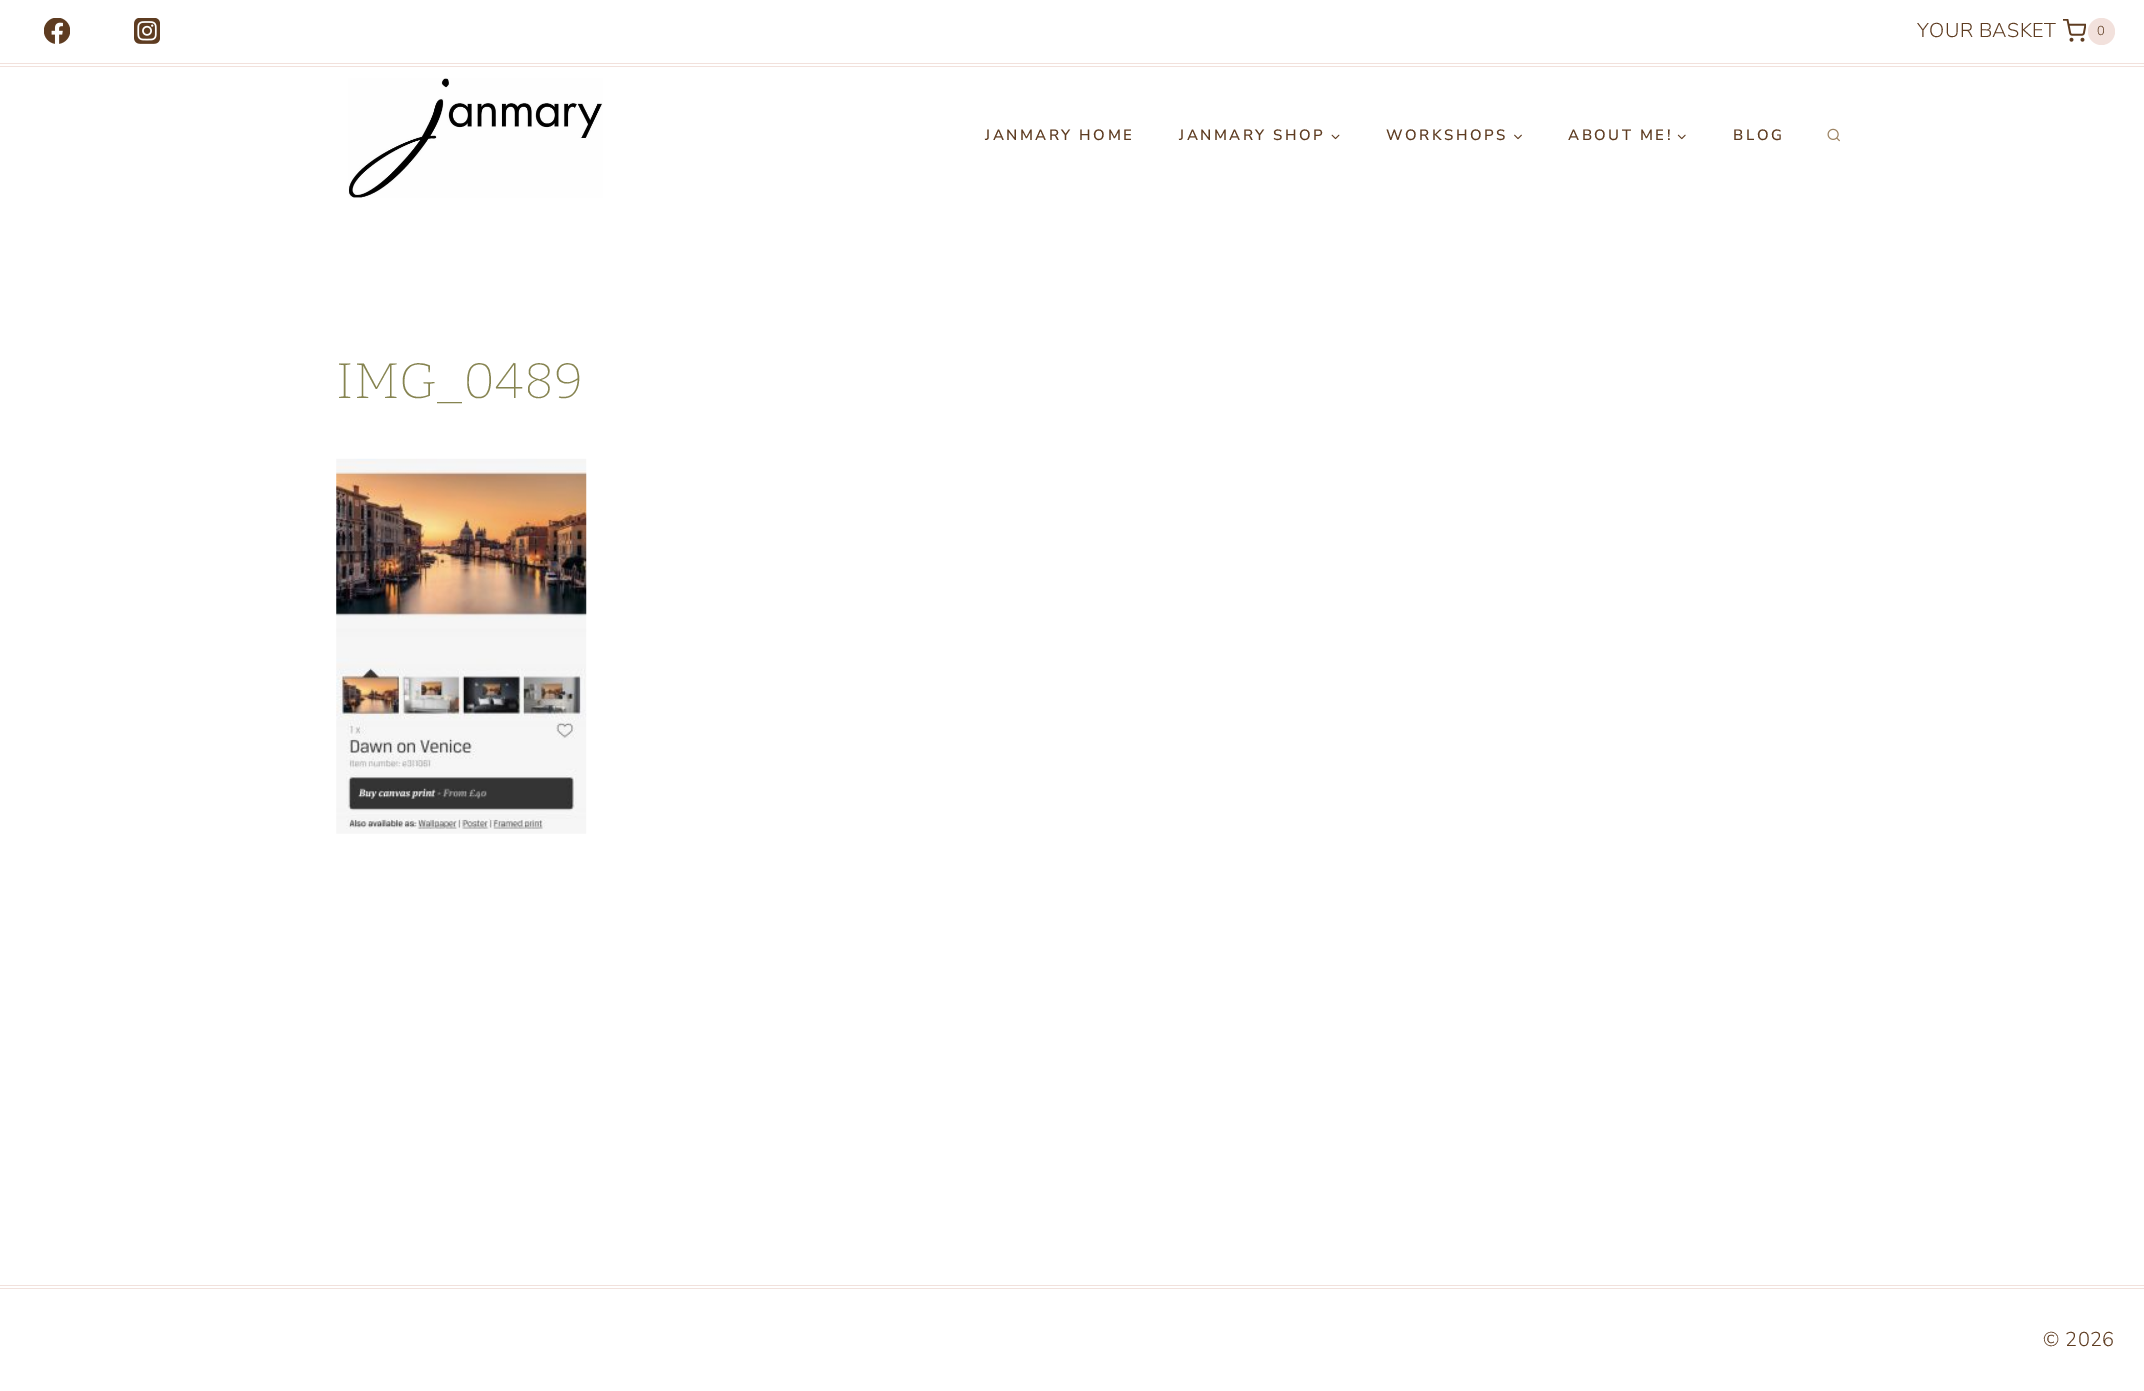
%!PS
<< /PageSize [2144 1391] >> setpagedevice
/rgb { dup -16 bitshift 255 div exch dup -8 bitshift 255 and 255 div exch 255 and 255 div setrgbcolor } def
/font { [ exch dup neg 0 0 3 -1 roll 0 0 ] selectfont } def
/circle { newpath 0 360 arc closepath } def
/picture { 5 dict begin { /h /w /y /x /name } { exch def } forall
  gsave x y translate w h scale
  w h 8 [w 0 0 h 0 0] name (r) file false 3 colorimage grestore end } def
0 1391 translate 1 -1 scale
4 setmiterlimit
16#FFFFFF rgb
0 0 2144 1391 rectfill
16#F2E1DC rgb
0 63 2144 1 rectfill
0 66 2144 1 rectfill
(pic1.raw) 44 18 26 26 picture
(pic2.raw) 134 18 26 26 picture
/NunitoSans-Light 20 font
16#5E3C21 rgb
1917 37 moveto 0.4 0 (YOUR BASKET) ashow
(pic3.raw) 2063 19 23 23 picture
16#F2E1DC rgb
2101.5 31.5 13.5 circle fill
/NunitoSans-Light 13 font
16#5E3C21 rgb
2097 35 moveto 0.4 0 (0) ashow
(pic4.raw) 348 78 255 120 picture
/NunitoSans-SemiBold 15 font
985 140 moveto 2.5 0 (JANMARY HOME) ashow
1179 140 moveto 2.5 0 (JANMARY SHOP) ashow
(pic5.raw) 1331 134 9 6 picture
1386 140 moveto 2.5 0 (WORKSHOPS) ashow
(pic6.raw) 1514 134 8 6 picture
1568 140 moveto 2.5 0 (ABOUT ME!) ashow
(pic7.raw) 1677 134 9 6 picture
1733 140 moveto 2.5 0 (BLOG) ashow
(pic8.raw) 1827 128 13 14 picture
/Bitter-ExtraLight 50 font
16#868451 rgb
336 398 moveto 0.4 0 (IMG_0489) ashow
(pic9.raw) 336 458 251 376 picture
16#F2E1DC rgb
0 1285 2144 1 rectfill
0 1288 2144 1 rectfill
/NunitoSans-Light 20 font
16#5E3C21 rgb
2043 1346 moveto 0.4 0 (© 2026) ashow
showpage
